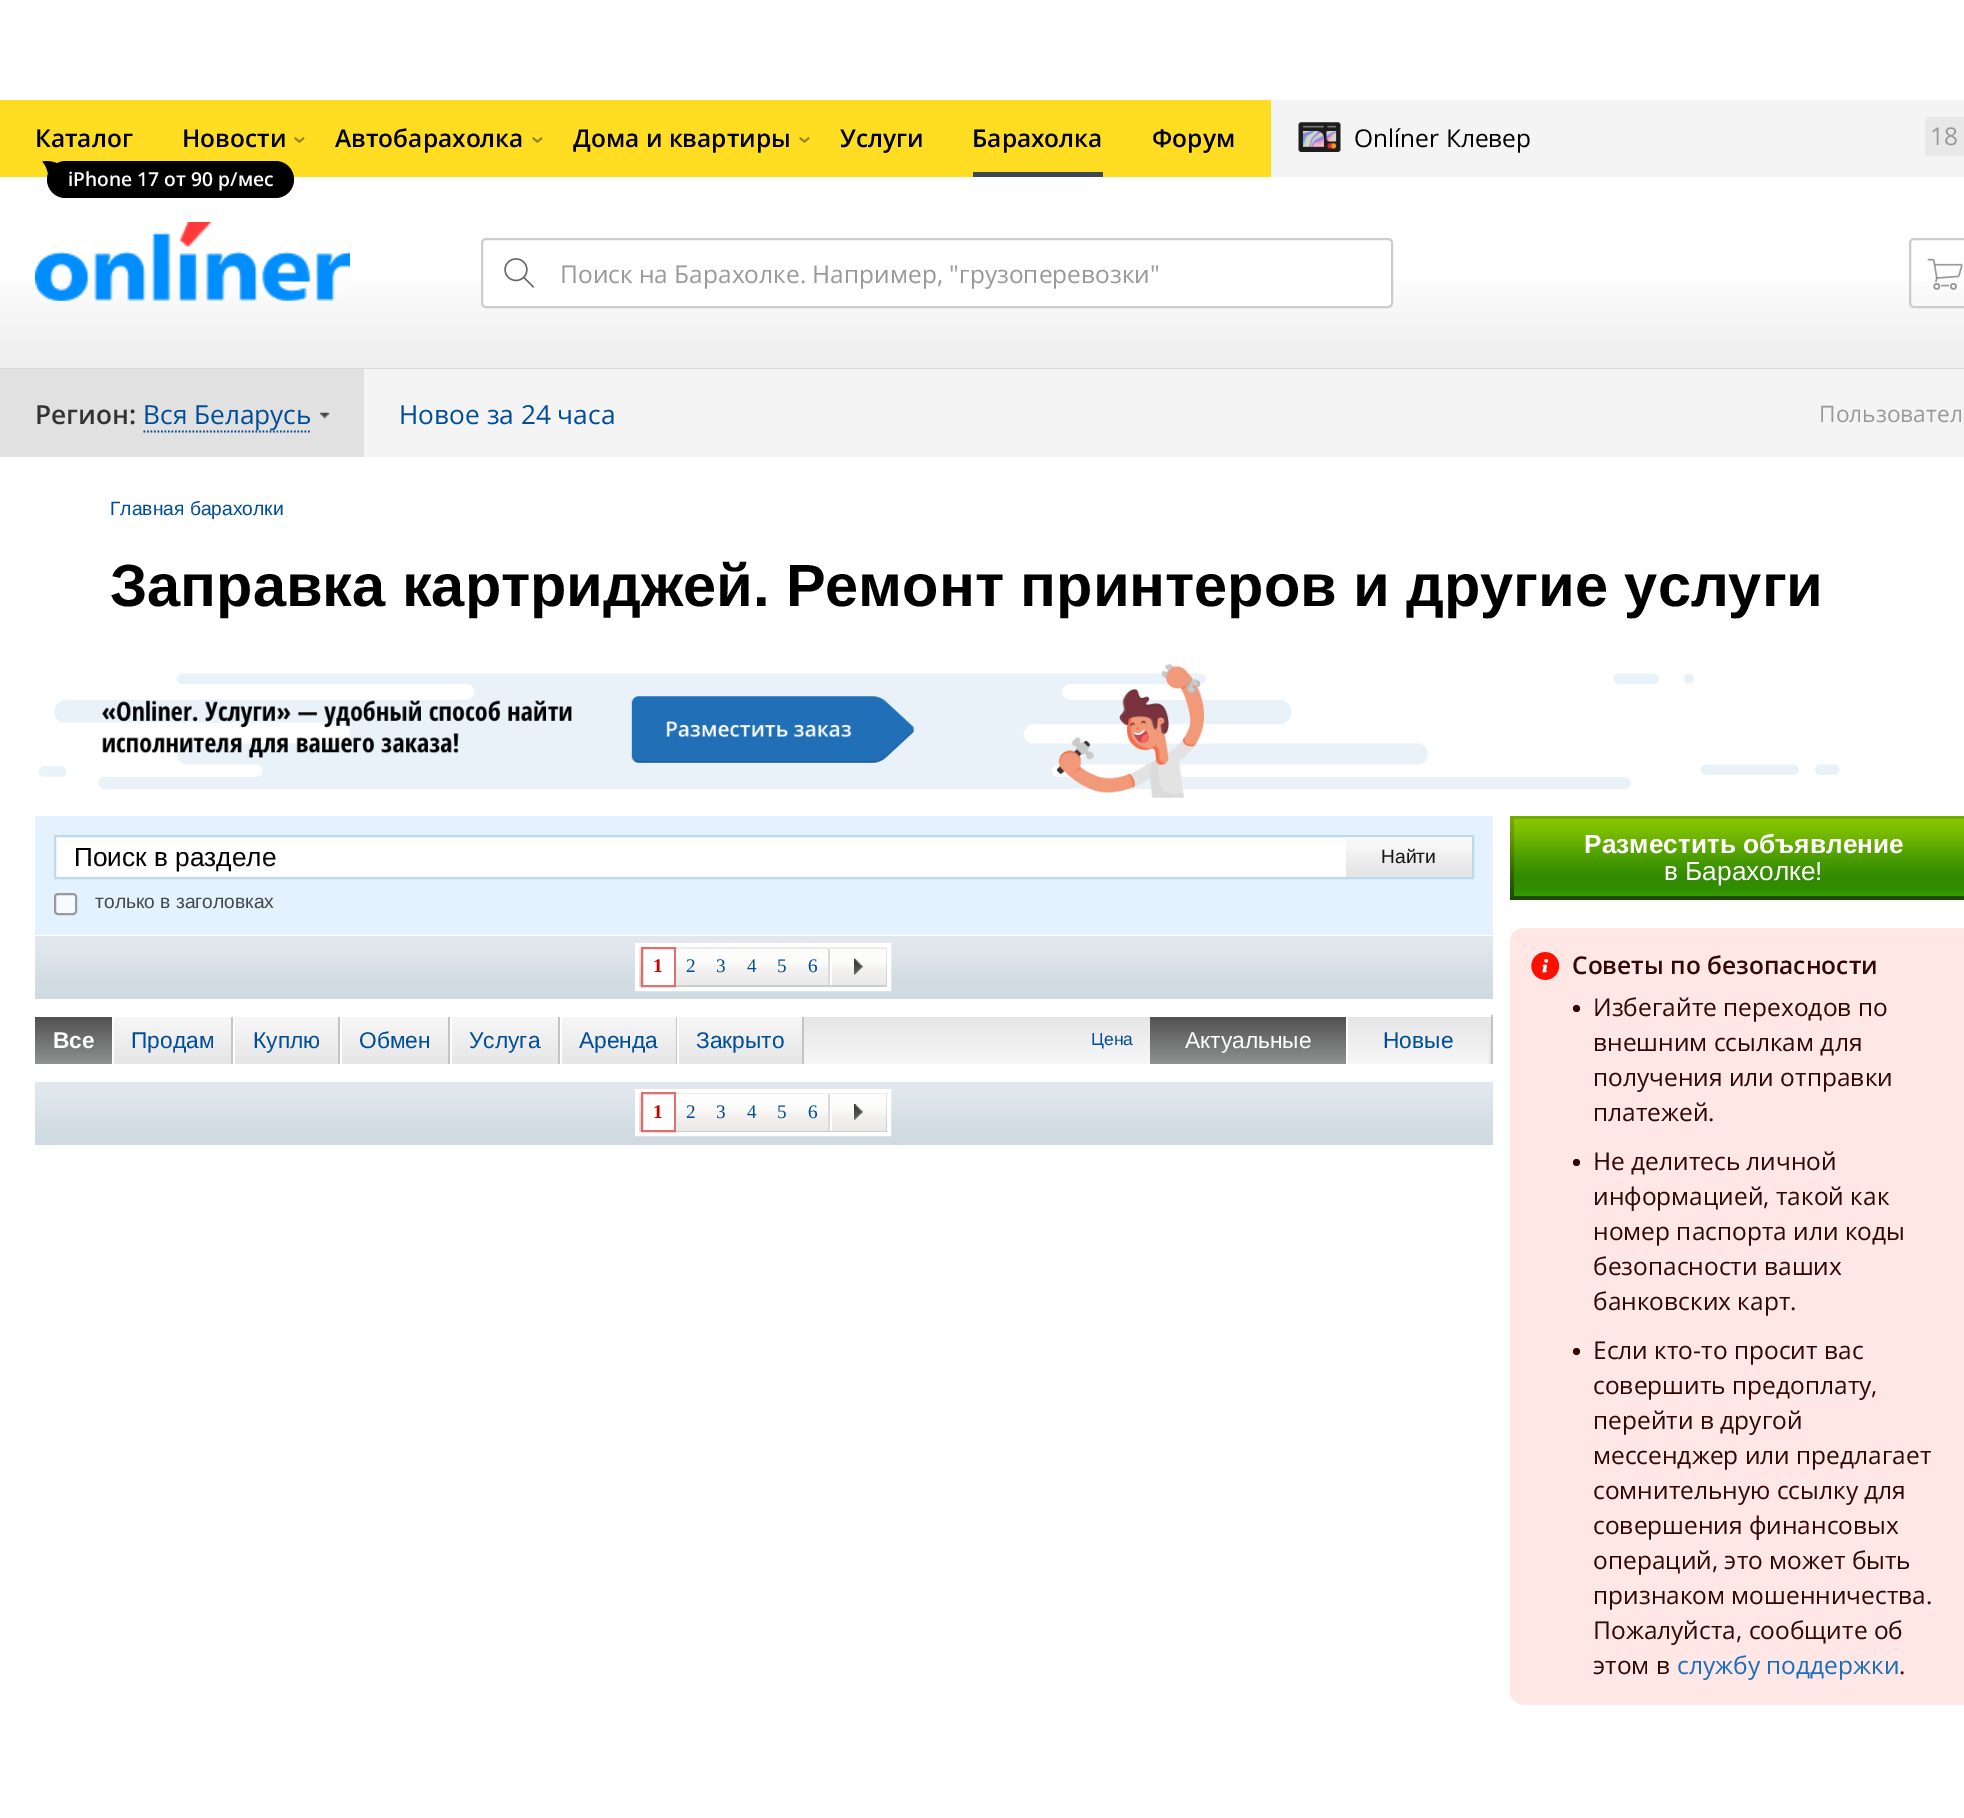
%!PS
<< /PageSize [1964 1818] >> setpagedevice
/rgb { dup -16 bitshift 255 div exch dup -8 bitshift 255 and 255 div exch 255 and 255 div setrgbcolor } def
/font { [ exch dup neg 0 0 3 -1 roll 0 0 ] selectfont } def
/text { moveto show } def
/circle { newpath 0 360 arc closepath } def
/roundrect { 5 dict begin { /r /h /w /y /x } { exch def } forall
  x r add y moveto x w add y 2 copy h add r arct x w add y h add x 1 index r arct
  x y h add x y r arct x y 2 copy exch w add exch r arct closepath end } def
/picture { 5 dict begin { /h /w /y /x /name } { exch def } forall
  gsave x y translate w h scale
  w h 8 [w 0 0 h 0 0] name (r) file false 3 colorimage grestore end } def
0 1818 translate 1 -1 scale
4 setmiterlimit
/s1 { /OpenSans-SemiBold 24.5 font 16#000000 rgb } def
/s2 { /OpenSans-SemiBold 19.25 font 16#FFFFFF rgb } def
/s3 { /OpenSans-Regular 24.5 font 16#000000 rgb } def
/s4 { /OpenSans-Regular 24.5 font 16#999999 rgb } def
/s5 { /OpenSans-SemiBold 26.25 font 16#333333 rgb } def
/s6 { /OpenSans-Regular 26.25 font 16#004D99 rgb } def
/s7 { /OpenSans-Regular 22.75 font 16#999999 rgb } def
/s8 { /LiberationSans-Regular 19.25 font 16#004D99 rgb } def
/s9 { /LiberationSans-Bold 59.5 font 16#000000 rgb } def
/s10 { /LiberationSans-Regular 26.25 font 16#000000 rgb } def
/s11 { /LiberationSans-Regular 19.25 font 16#181818 rgb } def
/s12 { /LiberationSans-Regular 19.25 font 16#44494D rgb } def
/s13 { /LiberationSerif-Bold 19.25 font 16#CB0000 rgb } def
/s14 { /LiberationSerif-Regular 19.25 font 16#004D99 rgb } def
/s15 { /LiberationSans-Bold 22.75 font 16#FFFFFF rgb } def
/s16 { /LiberationSans-Regular 22.75 font 16#004D99 rgb } def
/s17 { /LiberationSans-Regular 17.5 font 16#004D99 rgb } def
/s18 { /LiberationSans-Regular 22.75 font 16#FFFFFF rgb } def
/s19 { /LiberationSans-Bold 26.25 font 16#FFFFFF rgb } def
/s20 { /LiberationSans-Regular 26.25 font 16#FFFFFF rgb } def
/s21 { /OpenSans-SemiBold 24.5 font 16#330704 rgb } def
/s22 { /OpenSans-Regular 24.5 font 16#330704 rgb } def
/s23 { /OpenSans-Regular 24.5 font 16#1A6DBC rgb } def
16#FFFFFF rgb
0 0 1964 1818 rectfill
gsave 0 281 moveto 1964 281 lineto 1964 368 lineto 0 368 lineto closepath clip newpath
<< /ShadingType 2 /ColorSpace /DeviceRGB /Coords [1006 100 1006 432] /Extend [true true] /Function << /FunctionType 3 /Domain [0 1] /Functions [<< /FunctionType 2 /Domain [0 1] /C0 [1 1 1] /C1 [1 1 1] /N 1 >> << /FunctionType 2 /Domain [0 1] /C0 [1 1 1] /C1 [0.89 0.89 0.89] /N 1 >>] /Bounds [0.5] /Encode [0 1 0 1] >> >> shfill grestore
16#F4F4F4 rgb
1271 100 693 77 rectfill
16#FFDD22 rgb
0 100 1271 77 rectfill
s1
(Каталог) 35 147 text
47 161 247 37 18.5 roundrect fill
(pic1.raw) 42 161 23 13 picture
s2
(iPhone 17 от 90 р/мес) 68 186 text
s1
(Автобарахолка) 335 147 text
16#998514 rgb
gsave 544 144 translate -90 rotate 0 0 moveto (‹) show grestore
s1
(Новости) 182 147 text
16#998514 rgb
gsave 306 144 translate -90 rotate 0 0 moveto (‹) show grestore
s1
(Дома и квартиры) 573 147 text
16#998514 rgb
gsave 811 144 translate -90 rotate 0 0 moveto (‹) show grestore
s1
(Услуги) 840 147 text
(Барахолка) 972 147 text
16#3E4753 rgb
973 172 130 5 rectfill
s1
(Форум) 1152 147 text
(pic2.raw) 1298 122 43 30 picture
s3
(Onlíner Клевер) 1354 147 text
16#E8E8E8 rgb
1925 117 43 39 4 roundrect fill
s4
(18) 1930 145 text
(pic3.raw) 35 222 315 79 picture
16#FFFFFF rgb
481 238 912 70 5 roundrect fill
(pic4.raw) 504 258 31 30 picture
16#CCCCCC rgb
2 setlinewidth
482 239 910 68 4 roundrect stroke
s4
(Поиск на Барахолке. Например, "грузоперевозки") 560 283 text
16#CCCCCC rgb
1910 239 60 68 4 roundrect stroke
(pic5.raw) 1927 258 36 32 picture
16#D8D8D8 rgb
0 368 1964 1 rectfill
16#F4F4F4 rgb
364 369 1600 88 rectfill
16#E1E1E1 rgb
0 369 364 88 rectfill
s5
(Регион:) 35 424 text
16#004D99 rgb
1.8 setlinewidth
[1.75 1.75] 0 setdash
143.5 431.5 moveto 311.5 431.5 lineto stroke
s6
(Вся Беларусь) 143 424 text
(pic6.raw) 320 412 10 7 picture
(Новое за 24 часа) 399 424 text
s7
(Пользовател) 1819 422 text
s8
(Главная барахолки) 110 515 text
s9
(Заправка картриджей. Ремонт принтеров и другие услуги) 110 606 text
(pic7.raw) 38 664 1802 134 picture
16#E4F2FF rgb
35 816 1458 119 rectfill
16#FFFFFF rgb
56 837 1290 40 rectfill
16#BCD9F3 rgb
2 setlinewidth
[] 0 setdash
55 836 1418 42 rectstroke
s10
(Поиск в разделе) 74 866 text
gsave 1346 837 moveto 1472 837 lineto 1472 877 lineto 1346 877 lineto closepath clip newpath
<< /ShadingType 2 /ColorSpace /DeviceRGB /Coords [1409 837 1409 877] /Extend [true true] /Function << /FunctionType 3 /Domain [0 1] /Functions [<< /FunctionType 2 /Domain [0 1] /C0 [0.973 0.973 0.973] /C1 [0.965 0.965 0.965] /N 1 >> << /FunctionType 2 /Domain [0 1] /C0 [0.965 0.965 0.965] /C1 [0.906 0.906 0.906] /N 1 >> << /FunctionType 2 /Domain [0 1] /C0 [0.906 0.906 0.906] /C1 [0.902 0.898 0.902] /N 1 >>] /Bounds [0.28 0.78] /Encode [0 1 0 1 0 1] >> >> shfill grestore
s11
(Найти) 1381 863 text
16#F7FBFF rgb
55 894 21 20 3 roundrect gsave fill grestore
16#979B9F rgb
stroke
s12
(только в заголовках) 95 908 text
gsave 35 936 moveto 1493 936 lineto 1493 999 lineto 35 999 lineto closepath clip newpath
<< /ShadingType 2 /ColorSpace /DeviceRGB /Coords [764 936 764 999] /Extend [true true] /Function << /FunctionType 3 /Domain [0 1] /Functions [<< /FunctionType 2 /Domain [0 1] /C0 [0.89 0.91 0.929] /C1 [0.875 0.902 0.922] /N 1 >> << /FunctionType 2 /Domain [0 1] /C0 [0.875 0.902 0.922] /C1 [0.824 0.863 0.886] /N 1 >> << /FunctionType 2 /Domain [0 1] /C0 [0.824 0.863 0.886] /C1 [0.816 0.855 0.886] /N 1 >>] /Bounds [0.26 0.71] /Encode [0 1 0 1 0 1] >> >> shfill grestore
(pic8.raw) 639 947 248 40 picture
16#FFFFFF rgb
4 setlinewidth
637 945 252 44 rectstroke
642 948 moveto 675 948 lineto 675 986 lineto 642 986 lineto closepath gsave fill grestore
16#DE6F6F rgb
2 setlinewidth
stroke
s13
(1) 653 972 text
gsave 676 949 moveto 705 949 lineto 705 985 lineto 676 985 lineto closepath clip newpath
<< /ShadingType 2 /ColorSpace /DeviceRGB /Coords [690 949 690 985] /Extend [true true] /Function << /FunctionType 3 /Domain [0 1] /Functions [<< /FunctionType 2 /Domain [0 1] /C0 [1 0.996 0.996] /C1 [0.984 0.984 0.98] /N 1 >> << /FunctionType 2 /Domain [0 1] /C0 [0.984 0.984 0.98] /C1 [0.957 0.953 0.949] /N 1 >> << /FunctionType 2 /Domain [0 1] /C0 [0.957 0.953 0.949] /C1 [0.918 0.914 0.906] /N 1 >>] /Bounds [0.4 0.55] /Encode [0 1 0 1 0 1] >> >> shfill grestore
s14
(2) 686 972 text
gsave 705 949 moveto 737 949 lineto 737 985 lineto 705 985 lineto closepath clip newpath
<< /ShadingType 2 /ColorSpace /DeviceRGB /Coords [721 949 721 985] /Extend [true true] /Function << /FunctionType 3 /Domain [0 1] /Functions [<< /FunctionType 2 /Domain [0 1] /C0 [1 0.996 0.996] /C1 [0.984 0.984 0.98] /N 1 >> << /FunctionType 2 /Domain [0 1] /C0 [0.984 0.984 0.98] /C1 [0.957 0.953 0.949] /N 1 >> << /FunctionType 2 /Domain [0 1] /C0 [0.957 0.953 0.949] /C1 [0.918 0.914 0.906] /N 1 >>] /Bounds [0.4 0.55] /Encode [0 1 0 1 0 1] >> >> shfill grestore
(3) 716 972 text
gsave 737 949 moveto 767 949 lineto 767 985 lineto 737 985 lineto closepath clip newpath
<< /ShadingType 2 /ColorSpace /DeviceRGB /Coords [752 949 752 985] /Extend [true true] /Function << /FunctionType 3 /Domain [0 1] /Functions [<< /FunctionType 2 /Domain [0 1] /C0 [1 0.996 0.996] /C1 [0.984 0.984 0.98] /N 1 >> << /FunctionType 2 /Domain [0 1] /C0 [0.984 0.984 0.98] /C1 [0.957 0.953 0.949] /N 1 >> << /FunctionType 2 /Domain [0 1] /C0 [0.957 0.953 0.949] /C1 [0.918 0.914 0.906] /N 1 >>] /Bounds [0.4 0.55] /Encode [0 1 0 1 0 1] >> >> shfill grestore
(4) 747 972 text
gsave 767 949 moveto 798 949 lineto 798 985 lineto 767 985 lineto closepath clip newpath
<< /ShadingType 2 /ColorSpace /DeviceRGB /Coords [782 949 782 985] /Extend [true true] /Function << /FunctionType 3 /Domain [0 1] /Functions [<< /FunctionType 2 /Domain [0 1] /C0 [1 0.996 0.996] /C1 [0.984 0.984 0.98] /N 1 >> << /FunctionType 2 /Domain [0 1] /C0 [0.984 0.984 0.98] /C1 [0.957 0.953 0.949] /N 1 >> << /FunctionType 2 /Domain [0 1] /C0 [0.957 0.953 0.949] /C1 [0.918 0.914 0.906] /N 1 >>] /Bounds [0.4 0.55] /Encode [0 1 0 1 0 1] >> >> shfill grestore
(5) 777 972 text
gsave 798 949 moveto 828 949 lineto 828 985 lineto 798 985 lineto closepath clip newpath
<< /ShadingType 2 /ColorSpace /DeviceRGB /Coords [813 949 813 985] /Extend [true true] /Function << /FunctionType 3 /Domain [0 1] /Functions [<< /FunctionType 2 /Domain [0 1] /C0 [1 0.996 0.996] /C1 [0.984 0.984 0.98] /N 1 >> << /FunctionType 2 /Domain [0 1] /C0 [0.984 0.984 0.98] /C1 [0.957 0.953 0.949] /N 1 >> << /FunctionType 2 /Domain [0 1] /C0 [0.957 0.953 0.949] /C1 [0.918 0.914 0.906] /N 1 >>] /Bounds [0.4 0.55] /Encode [0 1 0 1 0 1] >> >> shfill grestore
(6) 808 972 text
gsave 832 949 moveto 886 949 lineto 886 985 lineto 832 985 lineto closepath clip newpath
<< /ShadingType 2 /ColorSpace /DeviceRGB /Coords [858 949 858 985] /Extend [true true] /Function << /FunctionType 3 /Domain [0 1] /Functions [<< /FunctionType 2 /Domain [0 1] /C0 [1 0.996 0.996] /C1 [0.984 0.984 0.98] /N 1 >> << /FunctionType 2 /Domain [0 1] /C0 [0.984 0.984 0.98] /C1 [0.957 0.953 0.949] /N 1 >> << /FunctionType 2 /Domain [0 1] /C0 [0.957 0.953 0.949] /C1 [0.918 0.914 0.906] /N 1 >>] /Bounds [0.4 0.55] /Encode [0 1 0 1 0 1] >> >> shfill grestore
16#DBDADA rgb
828 949 2 36 rectfill
16#FFFFFF rgb
830 949 2 36 rectfill
(pic9.raw) 854 958 9 19 picture
16#C4C4C4 rgb
1491 1015 2 49 rectfill
gsave 804 1017 moveto 1073 1017 lineto 1073 1064 lineto 804 1064 lineto closepath clip newpath
<< /ShadingType 2 /ColorSpace /DeviceRGB /Coords [554 1017 554 1064] /Extend [true true] /Function << /FunctionType 2 /Domain [0 1] /C0 [0.902 0.902 0.902] /C1 [0.969 0.969 0.969] /N 1 >> >> shfill grestore
gsave 35 1017 moveto 112 1017 lineto 112 1064 lineto 35 1064 lineto closepath clip newpath
<< /ShadingType 2 /ColorSpace /DeviceRGB /Coords [35 1017 35 1064] /Extend [true true] /Function << /FunctionType 2 /Domain [0 1] /C0 [0.318 0.318 0.318] /C1 [0.565 0.569 0.569] /N 1 >> >> shfill grestore
s15
(Все) 53 1048 text
gsave 114 1017 moveto 231 1017 lineto 231 1064 lineto 114 1064 lineto closepath clip newpath
<< /ShadingType 2 /ColorSpace /DeviceRGB /Coords [114 1017 114 1064] /Extend [true true] /Function << /FunctionType 2 /Domain [0 1] /C0 [0.969 0.969 0.969] /C1 [0.902 0.902 0.902] /N 1 >> >> shfill grestore
16#C4C4C4 rgb
231 1017 2 47 rectfill
s16
(Продам) 131 1048 text
gsave 235 1017 moveto 338 1017 lineto 338 1064 lineto 235 1064 lineto closepath clip newpath
<< /ShadingType 2 /ColorSpace /DeviceRGB /Coords [235 1017 235 1064] /Extend [true true] /Function << /FunctionType 2 /Domain [0 1] /C0 [0.969 0.969 0.969] /C1 [0.902 0.902 0.902] /N 1 >> >> shfill grestore
16#C4C4C4 rgb
338 1017 2 47 rectfill
s16
(Куплю) 253 1048 text
gsave 342 1017 moveto 448 1017 lineto 448 1064 lineto 342 1064 lineto closepath clip newpath
<< /ShadingType 2 /ColorSpace /DeviceRGB /Coords [341 1017 341 1064] /Extend [true true] /Function << /FunctionType 2 /Domain [0 1] /C0 [0.969 0.969 0.969] /C1 [0.902 0.902 0.902] /N 1 >> >> shfill grestore
16#C4C4C4 rgb
448 1017 2 47 rectfill
s16
(Обмен) 359 1048 text
gsave 452 1017 moveto 558 1017 lineto 558 1064 lineto 452 1064 lineto closepath clip newpath
<< /ShadingType 2 /ColorSpace /DeviceRGB /Coords [452 1017 452 1064] /Extend [true true] /Function << /FunctionType 2 /Domain [0 1] /C0 [0.969 0.969 0.969] /C1 [0.902 0.902 0.902] /N 1 >> >> shfill grestore
16#C4C4C4 rgb
558 1017 2 47 rectfill
s16
(Услуга) 469 1048 text
gsave 562 1017 moveto 676 1017 lineto 676 1064 lineto 562 1064 lineto closepath clip newpath
<< /ShadingType 2 /ColorSpace /DeviceRGB /Coords [562 1017 562 1064] /Extend [true true] /Function << /FunctionType 2 /Domain [0 1] /C0 [0.969 0.969 0.969] /C1 [0.902 0.902 0.902] /N 1 >> >> shfill grestore
16#C4C4C4 rgb
676 1017 1 47 rectfill
s16
(Аренда) 579 1048 text
gsave 679 1017 moveto 802 1017 lineto 802 1064 lineto 679 1064 lineto closepath clip newpath
<< /ShadingType 2 /ColorSpace /DeviceRGB /Coords [679 1017 679 1064] /Extend [true true] /Function << /FunctionType 2 /Domain [0 1] /C0 [0.969 0.969 0.969] /C1 [0.902 0.902 0.902] /N 1 >> >> shfill grestore
16#C4C4C4 rgb
802 1017 2 47 rectfill
s16
(Закрыто) 696 1048 text
gsave 1073 1017 moveto 1150 1017 lineto 1150 1064 lineto 1073 1064 lineto closepath clip newpath
<< /ShadingType 2 /ColorSpace /DeviceRGB /Coords [1111 1017 1111 1064] /Extend [true true] /Function << /FunctionType 2 /Domain [0 1] /C0 [0.902 0.902 0.902] /C1 [0.969 0.969 0.969] /N 1 >> >> shfill grestore
s17
(Цена) 1091 1045 text
gsave 1348 1017 moveto 1489 1017 lineto 1489 1064 lineto 1348 1064 lineto closepath clip newpath
<< /ShadingType 2 /ColorSpace /DeviceRGB /Coords [1320 1017 1320 1064] /Extend [true true] /Function << /FunctionType 2 /Domain [0 1] /C0 [0.902 0.902 0.902] /C1 [0.969 0.969 0.969] /N 1 >> >> shfill grestore
gsave 1150 1017 moveto 1346 1017 lineto 1346 1064 lineto 1150 1064 lineto closepath clip newpath
<< /ShadingType 2 /ColorSpace /DeviceRGB /Coords [1150 1017 1150 1064] /Extend [true true] /Function << /FunctionType 2 /Domain [0 1] /C0 [0.318 0.318 0.318] /C1 [0.565 0.569 0.569] /N 1 >> >> shfill grestore
s18
(Актуальные) 1185 1048 text
16#E6E6E6 rgb
1489 1017 2 47 rectfill
s16
(Новые) 1383 1048 text
gsave 35 1082 moveto 1493 1082 lineto 1493 1145 lineto 35 1145 lineto closepath clip newpath
<< /ShadingType 2 /ColorSpace /DeviceRGB /Coords [764 1082 764 1145] /Extend [true true] /Function << /FunctionType 3 /Domain [0 1] /Functions [<< /FunctionType 2 /Domain [0 1] /C0 [0.89 0.91 0.929] /C1 [0.875 0.902 0.922] /N 1 >> << /FunctionType 2 /Domain [0 1] /C0 [0.875 0.902 0.922] /C1 [0.824 0.863 0.886] /N 1 >> << /FunctionType 2 /Domain [0 1] /C0 [0.824 0.863 0.886] /C1 [0.816 0.855 0.886] /N 1 >>] /Bounds [0.26 0.71] /Encode [0 1 0 1 0 1] >> >> shfill grestore
(pic10.raw) 639 1093 248 39 picture
16#FFFFFF rgb
4 setlinewidth
637 1091 252 43 rectstroke
642 1093 moveto 675 1093 lineto 675 1131 lineto 642 1131 lineto closepath gsave fill grestore
16#DE6F6F rgb
2 setlinewidth
stroke
s13
(1) 653 1118 text
gsave 676 1094 moveto 705 1094 lineto 705 1131 lineto 676 1131 lineto closepath clip newpath
<< /ShadingType 2 /ColorSpace /DeviceRGB /Coords [690 1094 690 1131] /Extend [true true] /Function << /FunctionType 3 /Domain [0 1] /Functions [<< /FunctionType 2 /Domain [0 1] /C0 [1 0.996 0.996] /C1 [0.984 0.984 0.98] /N 1 >> << /FunctionType 2 /Domain [0 1] /C0 [0.984 0.984 0.98] /C1 [0.957 0.953 0.949] /N 1 >> << /FunctionType 2 /Domain [0 1] /C0 [0.957 0.953 0.949] /C1 [0.918 0.914 0.906] /N 1 >>] /Bounds [0.4 0.55] /Encode [0 1 0 1 0 1] >> >> shfill grestore
s14
(2) 686 1118 text
gsave 705 1094 moveto 737 1094 lineto 737 1131 lineto 705 1131 lineto closepath clip newpath
<< /ShadingType 2 /ColorSpace /DeviceRGB /Coords [721 1094 721 1131] /Extend [true true] /Function << /FunctionType 3 /Domain [0 1] /Functions [<< /FunctionType 2 /Domain [0 1] /C0 [1 0.996 0.996] /C1 [0.984 0.984 0.98] /N 1 >> << /FunctionType 2 /Domain [0 1] /C0 [0.984 0.984 0.98] /C1 [0.957 0.953 0.949] /N 1 >> << /FunctionType 2 /Domain [0 1] /C0 [0.957 0.953 0.949] /C1 [0.918 0.914 0.906] /N 1 >>] /Bounds [0.4 0.55] /Encode [0 1 0 1 0 1] >> >> shfill grestore
(3) 716 1118 text
gsave 737 1094 moveto 767 1094 lineto 767 1131 lineto 737 1131 lineto closepath clip newpath
<< /ShadingType 2 /ColorSpace /DeviceRGB /Coords [752 1094 752 1131] /Extend [true true] /Function << /FunctionType 3 /Domain [0 1] /Functions [<< /FunctionType 2 /Domain [0 1] /C0 [1 0.996 0.996] /C1 [0.984 0.984 0.98] /N 1 >> << /FunctionType 2 /Domain [0 1] /C0 [0.984 0.984 0.98] /C1 [0.957 0.953 0.949] /N 1 >> << /FunctionType 2 /Domain [0 1] /C0 [0.957 0.953 0.949] /C1 [0.918 0.914 0.906] /N 1 >>] /Bounds [0.4 0.55] /Encode [0 1 0 1 0 1] >> >> shfill grestore
(4) 747 1118 text
gsave 767 1094 moveto 798 1094 lineto 798 1131 lineto 767 1131 lineto closepath clip newpath
<< /ShadingType 2 /ColorSpace /DeviceRGB /Coords [782 1094 782 1131] /Extend [true true] /Function << /FunctionType 3 /Domain [0 1] /Functions [<< /FunctionType 2 /Domain [0 1] /C0 [1 0.996 0.996] /C1 [0.984 0.984 0.98] /N 1 >> << /FunctionType 2 /Domain [0 1] /C0 [0.984 0.984 0.98] /C1 [0.957 0.953 0.949] /N 1 >> << /FunctionType 2 /Domain [0 1] /C0 [0.957 0.953 0.949] /C1 [0.918 0.914 0.906] /N 1 >>] /Bounds [0.4 0.55] /Encode [0 1 0 1 0 1] >> >> shfill grestore
(5) 777 1118 text
gsave 798 1094 moveto 828 1094 lineto 828 1131 lineto 798 1131 lineto closepath clip newpath
<< /ShadingType 2 /ColorSpace /DeviceRGB /Coords [813 1094 813 1131] /Extend [true true] /Function << /FunctionType 3 /Domain [0 1] /Functions [<< /FunctionType 2 /Domain [0 1] /C0 [1 0.996 0.996] /C1 [0.984 0.984 0.98] /N 1 >> << /FunctionType 2 /Domain [0 1] /C0 [0.984 0.984 0.98] /C1 [0.957 0.953 0.949] /N 1 >> << /FunctionType 2 /Domain [0 1] /C0 [0.957 0.953 0.949] /C1 [0.918 0.914 0.906] /N 1 >>] /Bounds [0.4 0.55] /Encode [0 1 0 1 0 1] >> >> shfill grestore
(6) 808 1118 text
gsave 832 1094 moveto 886 1094 lineto 886 1131 lineto 832 1131 lineto closepath clip newpath
<< /ShadingType 2 /ColorSpace /DeviceRGB /Coords [858 1094 858 1131] /Extend [true true] /Function << /FunctionType 3 /Domain [0 1] /Functions [<< /FunctionType 2 /Domain [0 1] /C0 [1 0.996 0.996] /C1 [0.984 0.984 0.98] /N 1 >> << /FunctionType 2 /Domain [0 1] /C0 [0.984 0.984 0.98] /C1 [0.957 0.953 0.949] /N 1 >> << /FunctionType 2 /Domain [0 1] /C0 [0.957 0.953 0.949] /C1 [0.918 0.914 0.906] /N 1 >>] /Bounds [0.4 0.55] /Encode [0 1 0 1 0 1] >> >> shfill grestore
16#DBDADA rgb
828 1094 2 37 rectfill
16#FFFFFF rgb
830 1094 2 37 rectfill
(pic11.raw) 854 1104 9 18 picture
gsave 1510 816 moveto 1964 816 lineto 1964 900 lineto 1510 900 lineto closepath clip newpath
<< /ShadingType 2 /ColorSpace /DeviceRGB /Coords [1744 816 1744 900] /Extend [true true] /Function << /FunctionType 3 /Domain [0 1] /Functions [<< /FunctionType 2 /Domain [0 1] /C0 [0.467 0.675 0] /C1 [0.392 0.592 0] /N 1 >> << /FunctionType 2 /Domain [0 1] /C0 [0.392 0.592 0] /C1 [0.192 0.38 0] /N 1 >> << /FunctionType 2 /Domain [0 1] /C0 [0.192 0.38 0] /C1 [0.106 0.286 0] /N 1 >>] /Bounds [0.26 0.72] /Encode [0 1 0 1 0 1] >> >> shfill grestore
gsave 1514 819 moveto 1964 819 lineto 1964 896 lineto 1514 896 lineto closepath clip newpath
<< /ShadingType 2 /ColorSpace /DeviceRGB /Coords [1744 819 1744 896] /Extend [true true] /Function << /FunctionType 3 /Domain [0 1] /Functions [<< /FunctionType 2 /Domain [0 1] /C0 [0.541 0.78 0] /C1 [0.478 0.737 0] /N 1 >> << /FunctionType 2 /Domain [0 1] /C0 [0.478 0.737 0] /C1 [0.267 0.596 0] /N 1 >> << /FunctionType 2 /Domain [0 1] /C0 [0.267 0.596 0] /C1 [0.196 0.549 0] /N 1 >> << /FunctionType 2 /Domain [0 1] /C0 [0.196 0.549 0] /C1 [0.188 0.545 0] /N 1 >> << /FunctionType 2 /Domain [0 1] /C0 [0.188 0.545 0] /C1 [0.188 0.573 0] /N 1 >> << /FunctionType 2 /Domain [0 1] /C0 [0.188 0.573 0] /C1 [0.22 0.604 0] /N 1 >>] /Bounds [0.16 0.56 0.74 0.86 0.93] /Encode [0 1 0 1 0 1 0 1 0 1 0 1] >> >> shfill grestore
s19
(Разместить объявление) 1584 853 text
s20
(в Барахолке!) 1664 880 text
16#FFE7E6 rgb
1510 928 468 777 14 roundrect fill
(pic12.raw) 1531 952 28 28 picture
s21
(Советы по безопасности) 1572 974 text
1576.5 1008.5 3.5 circle fill
s22
(Избегайте переходов по) 1593 1016 text
(внешним ссылкам для) 1593 1051 text
(получения или отправки) 1593 1086 text
(платежей.) 1593 1121 text
1576.5 1162.5 3.5 circle fill
(Не делитесь личной) 1593 1170 text
(информацией, такой как) 1593 1205 text
(номер паспорта или коды) 1593 1240 text
(безопасности ваших) 1593 1275 text
(банковских карт.) 1593 1310 text
1576.5 1351.5 3.5 circle fill
(Если кто-то просит вас) 1593 1359 text
(совершить предоплату,) 1593 1394 text
(перейти в другой) 1593 1429 text
(мессенджер или предлагает) 1593 1464 text
(сомнительную ссылку для) 1593 1499 text
(совершения финансовых) 1593 1534 text
(операций, это может быть) 1593 1569 text
(признаком мошенничества.) 1593 1604 text
(Пожалуйста, сообщите об) 1593 1639 text
(этом в) 1593 1674 text
s23
(службу поддержки) 1677 1674 text
s22
(.) 1899 1674 text
showpage
